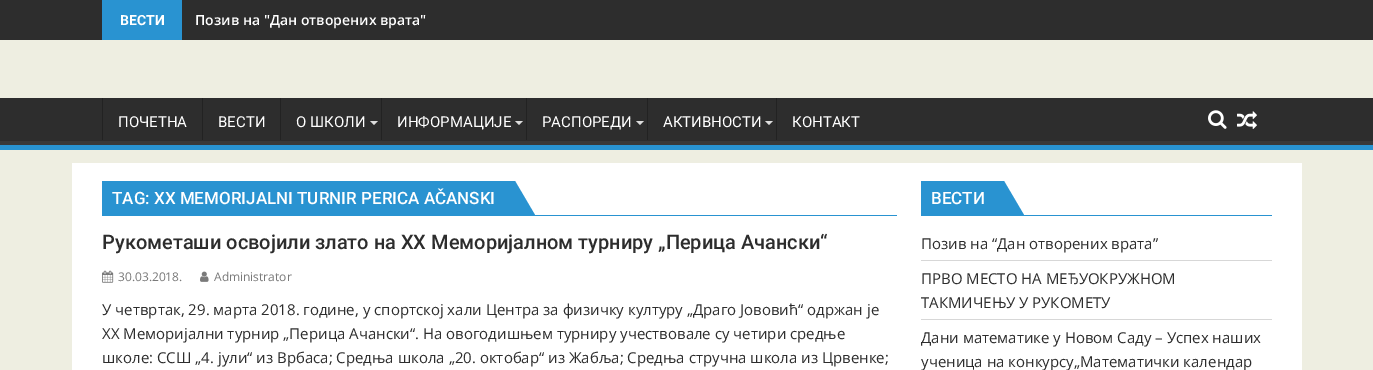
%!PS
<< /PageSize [1373 370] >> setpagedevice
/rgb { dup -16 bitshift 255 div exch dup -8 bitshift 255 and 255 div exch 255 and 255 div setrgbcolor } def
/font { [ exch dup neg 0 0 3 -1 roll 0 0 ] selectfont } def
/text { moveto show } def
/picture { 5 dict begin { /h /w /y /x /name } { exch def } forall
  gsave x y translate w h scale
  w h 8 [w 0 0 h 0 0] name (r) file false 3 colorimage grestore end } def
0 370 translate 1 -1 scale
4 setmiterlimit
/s1 { /Roboto-Bold 14 font 16#FFFFFF rgb } def
/s2 { /OpenSans-SemiBold 14 font 16#FFFFFF rgb } def
/s3 { /Roboto-Regular 15 font 16#FFFFFF rgb } def
/s4 { /Roboto-Medium 17 font 16#FFFFFF rgb } def
/s5 { /Roboto-Medium 20 font 16#2D2D2D rgb } def
/s6 { /OpenSans-Regular 12 font 16#7A7A7A rgb } def
/s7 { /OpenSans-Regular 15 font 16#2D2D2D rgb } def
16#EEEEE1 rgb
0 0 1373 370 rectfill
16#2D2D2D rgb
0 0 1373 40 rectfill
16#2993D1 rgb
102 0 80 40 rectfill
s1
(ВЕСТИ) 120 25 text
s2
(Позив на "Дан отворених врата") 195 25 text
16#2D2D2D rgb
0 98 1373 43 rectfill
gsave
0 98 1373 47 rectclip
16#393939 rgb
-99 -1 moveto 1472 -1 lineto 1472 244 lineto -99 244 lineto closepath -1 92 moveto 1372 92 lineto 1373 93 lineto 1373 141 lineto -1 141 lineto -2 140 lineto -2 92 lineto closepath eofill
grestore
16#2993D1 rgb
0 145 1373 5 rectfill
16#222222 rgb
102 98 1 42 rectfill
s3
(ПОЧЕТНА) 118 127 text
16#222222 rgb
202 98 1 42 rectfill
s3
(ВЕСТИ) 218 127 text
16#222222 rgb
280 98 1 42 rectfill
s3
(О ШКОЛИ) 296 127 text
16#DDDDDD rgb
370 121 moveto 378 121 lineto 374 125 lineto closepath fill
16#222222 rgb
381 98 1 42 rectfill
s3
(ИНФОРМАЦИЈЕ) 397 127 text
16#DDDDDD rgb
515 121 moveto 523 121 lineto 519 125 lineto closepath fill
16#222222 rgb
526 98 1 42 rectfill
s3
(РАСПОРЕДИ) 542 127 text
16#DDDDDD rgb
636 121 moveto 644 121 lineto 640 125 lineto closepath fill
16#222222 rgb
647 98 1 42 rectfill
s3
(АКТИВНОСТИ) 663 127 text
16#DDDDDD rgb
765 121 moveto 773 121 lineto 769 125 lineto closepath fill
16#222222 rgb
776 98 1 42 rectfill
s3
(КОНТАКТ) 792 127 text
(pic1.raw) 1208 110 19 19 picture
(pic2.raw) 1237 111 20 18 picture
72 163 1230 207 rectfill
16#2993D1 rgb
102 215 795 1 rectfill
102 181 393 34 rectfill
475 181 moveto 515 181 lineto 535 215 lineto 495 215 lineto closepath fill
s4
(TAG: XX MEMORIJALNI TURNIR PERICA AČANSKI) 112 204 text
s5
(Рукометаши освојили злато на XX Меморијалном турниру „Перица Ачански“) 102 249 text
(pic3.raw) 102 270 12 13 picture
s6
(30.03.2018.) 118 281 text
(pic4.raw) 200 271 9 11 picture
(Administrator) 214 281 text
s7
(У четвртак, 29. марта 2018. године, у спортској хали Центра за физичку културу „Драго Јововић“ одржан је) 102 315 text
(XX Меморијални турнир „Перица Ачански“. На овогодишњем турниру учествовале су четири средње) 102 339 text
(школе: ССШ „4. јули“ из Врбаса; Средња школа „20. октобар“ из Жабља; Средња стручна школа из Црвенке;) 102 363 text
16#2993D1 rgb
921 215 351 1 rectfill
921 181 63 34 rectfill
964 181 moveto 1004 181 lineto 1024 215 lineto 984 215 lineto closepath fill
s4
(ВЕСТИ) 931 204 text
16#D7D7D7 rgb
921 260 351 1 rectfill
s7
(Позив на “Дан отворених врата”) 921 249 text
16#D7D7D7 rgb
921 319 351 1 rectfill
s7
(ПРВО МЕСТО НА МЕЂУОКРУЖНОМ) 921 284 text
(ТАКМИЧЕЊУ У РУКОМЕТУ) 921 308 text
(Дани математике у Новом Саду – Успех наших) 921 343 text
(ученица на конкурсу„Математички календар) 921 367 text
showpage
